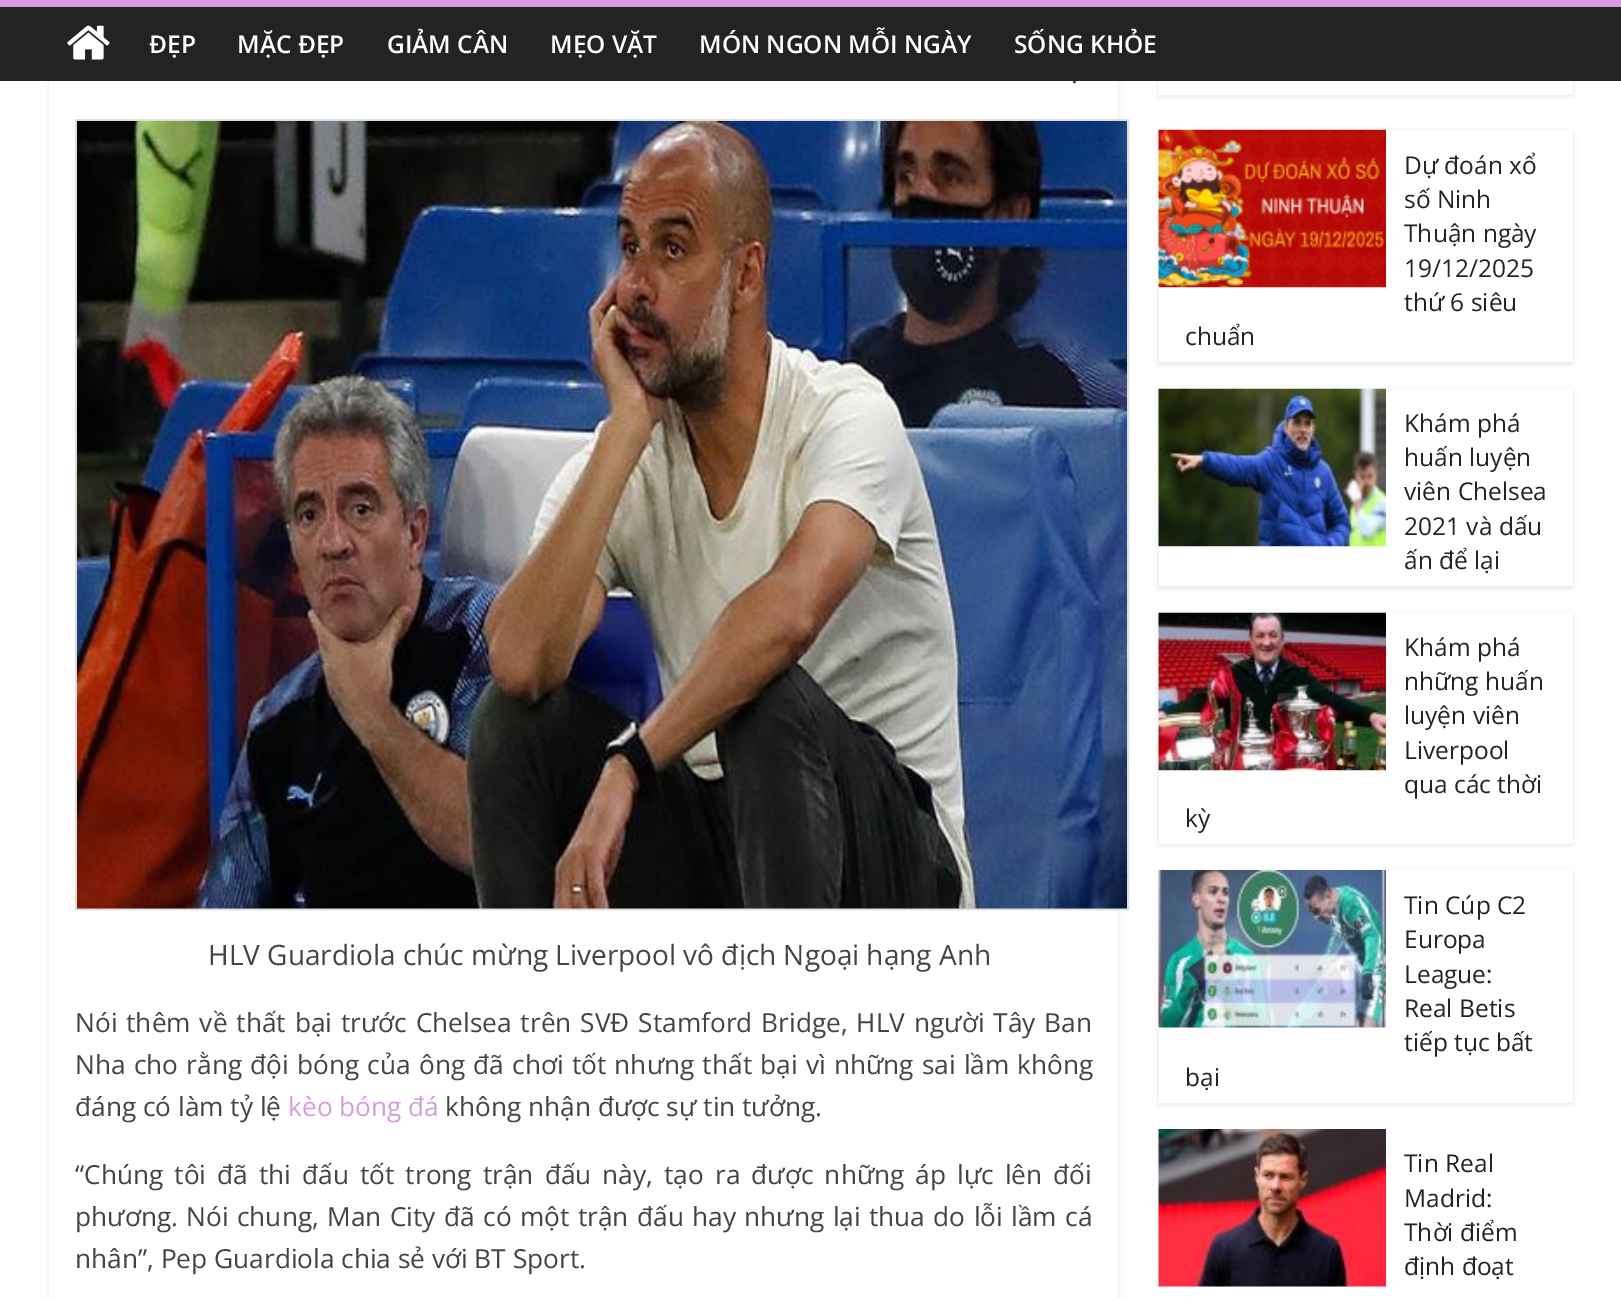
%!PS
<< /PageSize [1621 1298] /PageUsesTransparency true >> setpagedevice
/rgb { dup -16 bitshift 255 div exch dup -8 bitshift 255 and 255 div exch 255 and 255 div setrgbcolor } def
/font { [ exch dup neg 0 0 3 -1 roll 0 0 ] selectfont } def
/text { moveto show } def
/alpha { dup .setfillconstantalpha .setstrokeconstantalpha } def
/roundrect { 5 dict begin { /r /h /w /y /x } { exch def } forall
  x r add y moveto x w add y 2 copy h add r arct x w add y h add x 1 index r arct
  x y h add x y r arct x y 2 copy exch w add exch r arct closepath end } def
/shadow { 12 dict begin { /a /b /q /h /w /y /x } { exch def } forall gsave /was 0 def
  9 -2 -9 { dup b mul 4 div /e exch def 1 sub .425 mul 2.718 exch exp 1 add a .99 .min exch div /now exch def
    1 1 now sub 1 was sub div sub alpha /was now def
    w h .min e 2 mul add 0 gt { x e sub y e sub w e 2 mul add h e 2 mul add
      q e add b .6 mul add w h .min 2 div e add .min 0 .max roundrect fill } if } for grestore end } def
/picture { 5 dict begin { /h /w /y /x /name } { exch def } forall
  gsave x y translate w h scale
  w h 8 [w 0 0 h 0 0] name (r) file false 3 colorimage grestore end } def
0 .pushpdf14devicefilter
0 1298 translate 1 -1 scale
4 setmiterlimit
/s1 { /OpenSans-Regular 26.25 font 16#444444 rgb } def
/s2 { /OpenSans-SemiBold 24.5 font 16#FFFFFF rgb } def
/s3 { /OpenSans-Regular 28 font 16#444444 rgb } def
/s4 { /OpenSans-Regular 26.25 font 16#D99AE0 rgb } def
/s5 { /OpenSans-Regular 24.5 font 16#232323 rgb } def
16#FFFFFF rgb
0 0 1621 1298 rectfill
gsave
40 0 moveto 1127 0 lineto 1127 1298 lineto 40 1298 lineto closepath 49 -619 moveto 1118 -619 lineto 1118 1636 lineto 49 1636 lineto closepath eoclip newpath
16#000000 rgb
49 -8 1069 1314 0 2.5 0.1 shadow
grestore
s1
(.) 1071 83 text
16#000000 rgb
1159 -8 414 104 0 2.5 0.1 shadow
16#232323 rgb
0 7 1621 74 rectfill
16#D99AE0 rgb
0 0 1621 7 rectfill
(pic1.raw) 67 25 43 35 picture
s2
(ĐẸP) 149 53 text
(MẶC ĐẸP) 237 53 text
(GIẢM CÂN) 387 53 text
(MẸO VẶT) 550 53 text
(MÓN NGON MỖI NGÀY) 699 53 text
(SỐNG KHỎE) 1014 53 text
16#DDDDDD rgb
2 setlinewidth
76 120 1052 789 rectstroke
(pic2.raw) 77 121 1050 788 picture
s3
(HLV Guardiola chúc mừng Liverpool vô địch Ngoại hạng Anh) 208 965 text
/OpenSans-Regular 26.25 font
75 1032 moveto 2.1 0 32 (Nói thêm về thất bại trước Chelsea trên SVĐ Stamford Bridge, HLV người Tây Ban) widthshow
75 1074 moveto 1.4 0 32 (Nha cho rằng đội bóng của ông đã chơi tốt nhưng thất bại vì những sai lầm không) widthshow
(đáng có làm tỷ lệ) 75 1116 text
s4
(kèo bóng đá) 288 1116 text
s1
(không nhận được sự tin tưởng.) 445 1116 text
75 1184 moveto 4.25 0 32 (“Chúng tôi đã thi đấu tốt trong trận đấu này, tạo ra được những áp lực lên đối) widthshow
75 1226 moveto 1.6 0 32 (phương. Nói chung, Man City đã có một trận đấu hay nhưng lại thua do lỗi lầm cá) widthshow
(nhân”, Pep Guardiola chia sẻ với BT Sport.) 75 1268 text
16#FFFFFF rgb
1159 81 414 14 rectfill
gsave
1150 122 moveto 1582 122 lineto 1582 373 lineto 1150 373 lineto closepath 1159 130 moveto 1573 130 lineto 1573 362 lineto 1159 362 lineto closepath eoclip newpath
16#000000 rgb
1159 131 414 233 0 2.5 0.1 shadow
grestore
(pic3.raw) 1158 129 228 159 picture
s5
(Dự đoán xổ) 1404 174 text
(số Ninh) 1404 208 text
(Thuận ngày) 1404 242 text
(19/12/2025) 1404 277 text
(thứ 6 siêu) 1404 311 text
(chuẩn) 1185 345 text
gsave
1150 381 moveto 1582 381 lineto 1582 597 lineto 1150 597 lineto closepath 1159 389 moveto 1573 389 lineto 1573 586 lineto 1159 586 lineto closepath eoclip newpath
16#000000 rgb
1159 390 414 198 0 2.5 0.1 shadow
grestore
(pic4.raw) 1158 388 228 159 picture
(Khám phá) 1404 432 text
(huấn luyện) 1404 466 text
(viên Chelsea) 1404 500 text
(2021 và dấu) 1404 535 text
(ấn để lại) 1404 569 text
16#000000 rgb
1159 614 414 231 0 2.5 0.1 shadow
16#FFFFFF rgb
1159 613 414 231 rectfill
(pic5.raw) 1158 612 228 159 picture
s5
(Khám phá) 1404 656 text
(những huấn) 1404 690 text
(luyện viên) 1404 724 text
(Liverpool) 1404 759 text
(qua các thời) 1404 793 text
(kỳ) 1185 827 text
16#000000 rgb
1159 872 414 232 0 2.5 0.1 shadow
16#FFFFFF rgb
1159 870 414 233 rectfill
(pic6.raw) 1158 870 228 158 picture
s5
(Tin Cúp C2) 1404 914 text
(Europa) 1404 948 text
(League:) 1404 983 text
(Real Betis) 1404 1017 text
(tiếp tục bất) 1404 1051 text
(bại) 1185 1086 text
(pic7.raw) 1158 1129 228 158 picture
(Tin Real) 1404 1172 text
(Madrid:) 1404 1207 text
(Thời điểm) 1404 1241 text
(định đoạt) 1404 1275 text
.poppdf14devicefilter showpage
